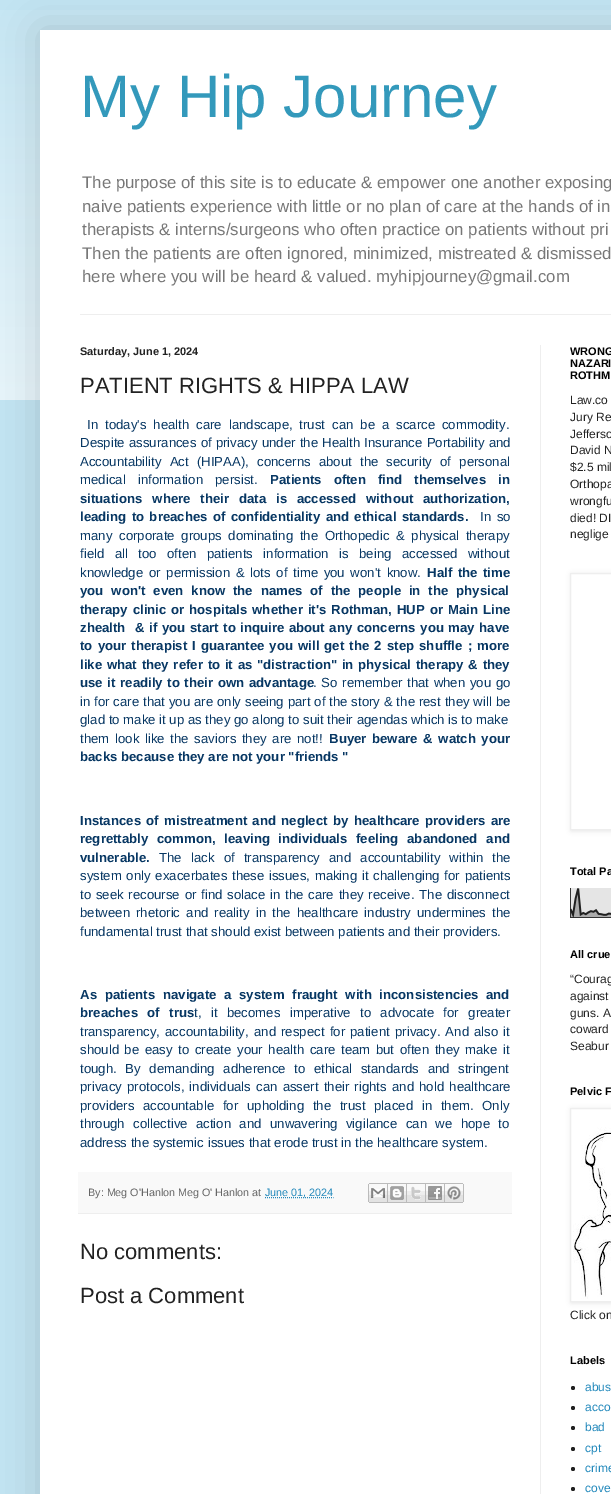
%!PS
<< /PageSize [611 1494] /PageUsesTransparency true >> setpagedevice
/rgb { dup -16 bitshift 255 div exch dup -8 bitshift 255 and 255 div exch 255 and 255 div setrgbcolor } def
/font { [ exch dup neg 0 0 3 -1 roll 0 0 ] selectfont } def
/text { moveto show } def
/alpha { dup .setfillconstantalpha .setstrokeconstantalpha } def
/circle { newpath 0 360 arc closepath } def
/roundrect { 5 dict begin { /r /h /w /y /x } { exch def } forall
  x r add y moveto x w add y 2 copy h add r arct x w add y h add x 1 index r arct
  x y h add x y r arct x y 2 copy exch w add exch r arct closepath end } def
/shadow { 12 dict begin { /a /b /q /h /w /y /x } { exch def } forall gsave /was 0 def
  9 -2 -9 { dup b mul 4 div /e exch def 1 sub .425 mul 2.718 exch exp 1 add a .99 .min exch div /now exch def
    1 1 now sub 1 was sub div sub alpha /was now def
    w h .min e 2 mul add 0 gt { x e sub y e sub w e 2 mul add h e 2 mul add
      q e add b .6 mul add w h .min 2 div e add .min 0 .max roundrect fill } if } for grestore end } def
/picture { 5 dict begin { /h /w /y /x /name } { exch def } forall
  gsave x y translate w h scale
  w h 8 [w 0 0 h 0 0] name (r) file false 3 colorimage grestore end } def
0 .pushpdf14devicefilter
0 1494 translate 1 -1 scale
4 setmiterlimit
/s1 { /LiberationSans-Regular 60 font 16#3399BB rgb } def
/s2 { /LiberationSans-Regular 16.8 font 16#777777 rgb } def
/s3 { /LiberationSans-Bold 11 font 16#222222 rgb } def
/s4 { /LiberationSans-Regular 22 font 16#222222 rgb } def
/s5 { /LiberationSans-Regular 13.2 font 16#073763 rgb } def
/s6 { /LiberationSans-Bold 13.2 font 16#073763 rgb } def
/s7 { /LiberationSans-Regular 10.75 font 16#666666 rgb } def
/s8 { /LiberationSans-Regular 10.75 font 16#2288BB rgb } def
/s9 { /LiberationSans-Bold 11 font 16#000000 rgb } def
/s10 { /LiberationSans-Regular 12 font 16#222222 rgb } def
/s11 { /LiberationSans-Regular 12 font 16#2288BB rgb } def
16#C2E4F2 rgb
0 0 611 1494 rectfill
(pic1.raw) 0 10 611 390 picture
16#000000 rgb
40 30 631 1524 0 20 0.15 shadow
16#FFFFFF rgb
40 30 571 1464 rectfill
s1
(My Hip Journey) 80 117 text
s2
(The purpose of this site is to educate & empower one another exposing) 82 188 text
(naive patients experience with little or no plan of care at the hands of in) 82 212 text
(therapists & interns/surgeons who often practice on patients without pri) 82 235 text
(Then the patients are often ignored, minimized, mistreated & dismissed) 82 259 text
(here where you will be heard & valued. myhipjourney@gmail.com) 82 282 text
16#EEEEEE rgb
80 314 531 1 rectfill
540 345 1 1149 rectfill
s3
(Saturday, June 1, 2024) 80 355 text
s4
(PATIENT RIGHTS & HIPPA LAW) 80 393 text
/LiberationSans-Regular 13.2 font
16#073763 rgb
87 429 moveto 3.25 0 32 (In today's health care landscape, trust can be a scarce commodity.) widthshow
80 447 moveto 0.5 0 32 (Despite assurances of privacy under the Health Insurance Portability and) widthshow
80 466 moveto 4.5 0 32 (Accountability Act \(HIPAA\), concerns about the security of personal) widthshow
80 484 moveto 8.5 0 32 (medical information persist.) widthshow
/LiberationSans-Bold 13.2 font
270 484 moveto 8.5 0 32 (Patients often find themselves in) widthshow
80 503 moveto 6.25 0 32 (situations where their data is accessed without authorization,) widthshow
80 521 moveto 1.75 0 32 (leading to breaches of confidentiality and ethical standards.) widthshow
/LiberationSans-Regular 13.2 font
480 521 moveto 2 0 32 (In so) widthshow
80 540 moveto 3 0 32 (many corporate groups dominating the Orthopedic & physical therapy) widthshow
80 558 moveto 6.75 0 32 (field all too often patients information is being accessed without) widthshow
80 577 moveto 2 0 32 (knowledge or permission & lots of time you won't know.) widthshow
/LiberationSans-Bold 13.2 font
427 577 moveto 2 0 32 (Half the time) widthshow
80 595 moveto 4.25 0 32 (you won't even know the names of the people in the physical) widthshow
80 614 moveto 1.25 0 32 (therapy clinic or hospitals whether it's Rothman, HUP or Main Line) widthshow
80 632 moveto 1 0 32 (zhealth  & if you start to inquire about any concerns you may have) widthshow
80 650 moveto 1.5 0 32 (to your therapist I guarantee you will get the 2 step shuffle ; more) widthshow
80 669 moveto 1.1 0 32 (like what they refer to it as "distraction" in physical therapy & they) widthshow
80 687 moveto 1 0 32 (use it readily to their own advantage) widthshow
/LiberationSans-Regular 13.2 font
313 687 moveto 1 0 32 (. So remember that when you go) widthshow
80 706 moveto 0.2 0 32 (in for care that you are only seeing part of the story & the rest they will be) widthshow
(glad to make it up as they go along to suit their agendas which is to make) 80 724 text
80 743 moveto 2 0 32 (them look like the saviors they are not!!) widthshow
/LiberationSans-Bold 13.2 font
329 743 moveto 2 0 32 (Buyer beware & watch your) widthshow
(backs because they are not your "friends ") 80 761 text
80 825 moveto 1.75 0 32 (Instances of mistreatment and neglect by healthcare providers are) widthshow
80 843 moveto 5 0 32 (regrettably common, leaving individuals feeling abandoned and) widthshow
(vulnerable.) 80 862 text
/LiberationSans-Regular 13.2 font
159 862 moveto 5.5 0 32 (The lack of transparency and accountability within the) widthshow
80 880 moveto 1 0 32 (system only exacerbates these issues, making it challenging for patients) widthshow
80 899 moveto 1.1 0 32 (to seek recourse or find solace in the care they receive. The disconnect) widthshow
80 917 moveto 2.5 0 32 (between rhetoric and reality in the healthcare industry undermines the) widthshow
(fundamental trust that should exist between patients and their providers.) 80 936 text
/LiberationSans-Bold 13.2 font
80 999 moveto 4 0 32 (As patients navigate a system fraught with inconsistencies and) widthshow
80 1017 moveto 5.75 0 32 (breaches of trus) widthshow
/LiberationSans-Regular 13.2 font
194 1017 moveto 5.75 0 32 (t, it becomes imperative to advocate for greater) widthshow
80 1036 moveto 1.5 0 32 (transparency, accountability, and respect for patient privacy. And also it) widthshow
80 1054 moveto 1.9 0 32 (should be easy to create your health care team but often they make it) widthshow
80 1073 moveto 5 0 32 (tough. By demanding adherence to ethical standards and stringent) widthshow
80 1091 moveto 1.5 0 32 (privacy protocols, individuals can assert their rights and hold healthcare) widthshow
80 1110 moveto 5 0 32 (providers accountable for upholding the trust placed in them. Only) widthshow
80 1128 moveto 4.75 0 32 (through collective action and unwavering vigilance can we hope to) widthshow
(address the systemic issues that erode trust in the healthcare system.) 80 1147 text
16#F9F9F9 rgb
78 1172 434 41 rectfill
16#EEEEEE rgb
78 1213 434 1 rectfill
s7
(By: Meg O'Hanlon Meg O' Hanlon at) 88 1196 text
16#2288BB rgb
[1 1] 0 setdash
265 1197.5 moveto 333.5 1197.5 lineto stroke
(June 01, 2024) 265 1196 text
(pic2.raw) 368 1183 20 20 picture
(pic3.raw) 388 1183 19 20 picture
(pic4.raw) 407 1183 19 20 picture
(pic5.raw) 426 1183 19 20 picture
(pic6.raw) 445 1183 19 20 picture
s4
(No comments:) 80 1259 text
(Post a Comment) 80 1303 text
s9
(WRONG) 570 355 text
(NAZARI) 570 367 text
(ROTHM) 570 379 text
s10
(Law.co) 570 404 text
(Jury Re) 570 421 text
(Jefferso) 570 438 text
(David N) 570 454 text
($2.5 mil) 570 471 text
(Orthopa) 570 488 text
(wrongfu) 570 505 text
(died! DI) 570 522 text
(neglige) 570 538 text
gsave
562 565 moveto 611 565 lineto 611 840 lineto 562 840 lineto closepath 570 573 moveto 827 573 lineto 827 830 lineto 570 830 lineto closepath eoclip newpath
16#000000 rgb
571 574 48 257 0 2.5 0.1 shadow
grestore
16#EEEEEE rgb
[] 0 setdash
570.5 573.5 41 256 rectstroke
s9
(Total Pa) 570 875 text
(pic7.raw) 570 888 41 30 picture
(All crue) 570 958 text
s10
(“Courag) 570 983 text
(against) 570 1000 text
(guns. A) 570 1017 text
(coward) 570 1033 text
(Seabur) 570 1050 text
s9
(Pelvic F) 570 1095 text
gsave
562 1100 moveto 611 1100 lineto 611 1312 lineto 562 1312 lineto closepath 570 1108 moveto 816 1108 lineto 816 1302 lineto 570 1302 lineto closepath eoclip newpath
571 1109 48 194 0 2.5 0.1 shadow
grestore
16#EEEEEE rgb
570.5 1108.5 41 193 rectstroke
(pic8.raw) 573 1127 38 172 picture
s10
(Click on) 570 1319 text
s9
(Labels) 570 1364 text
16#222222 rgb
573 1388 2 circle fill
s11
(abus) 585 1391 text
16#222222 rgb
573 1408 2 circle fill
s11
(acco) 585 1411 text
16#222222 rgb
573 1428 2 circle fill
s11
(bad) 585 1431 text
16#222222 rgb
573 1449 2 circle fill
s11
(cpt) 585 1452 text
16#222222 rgb
573 1469 2 circle fill
s11
(crime) 585 1472 text
16#222222 rgb
573 1489 2 circle fill
s11
(cove) 585 1492 text
.poppdf14devicefilter showpage
